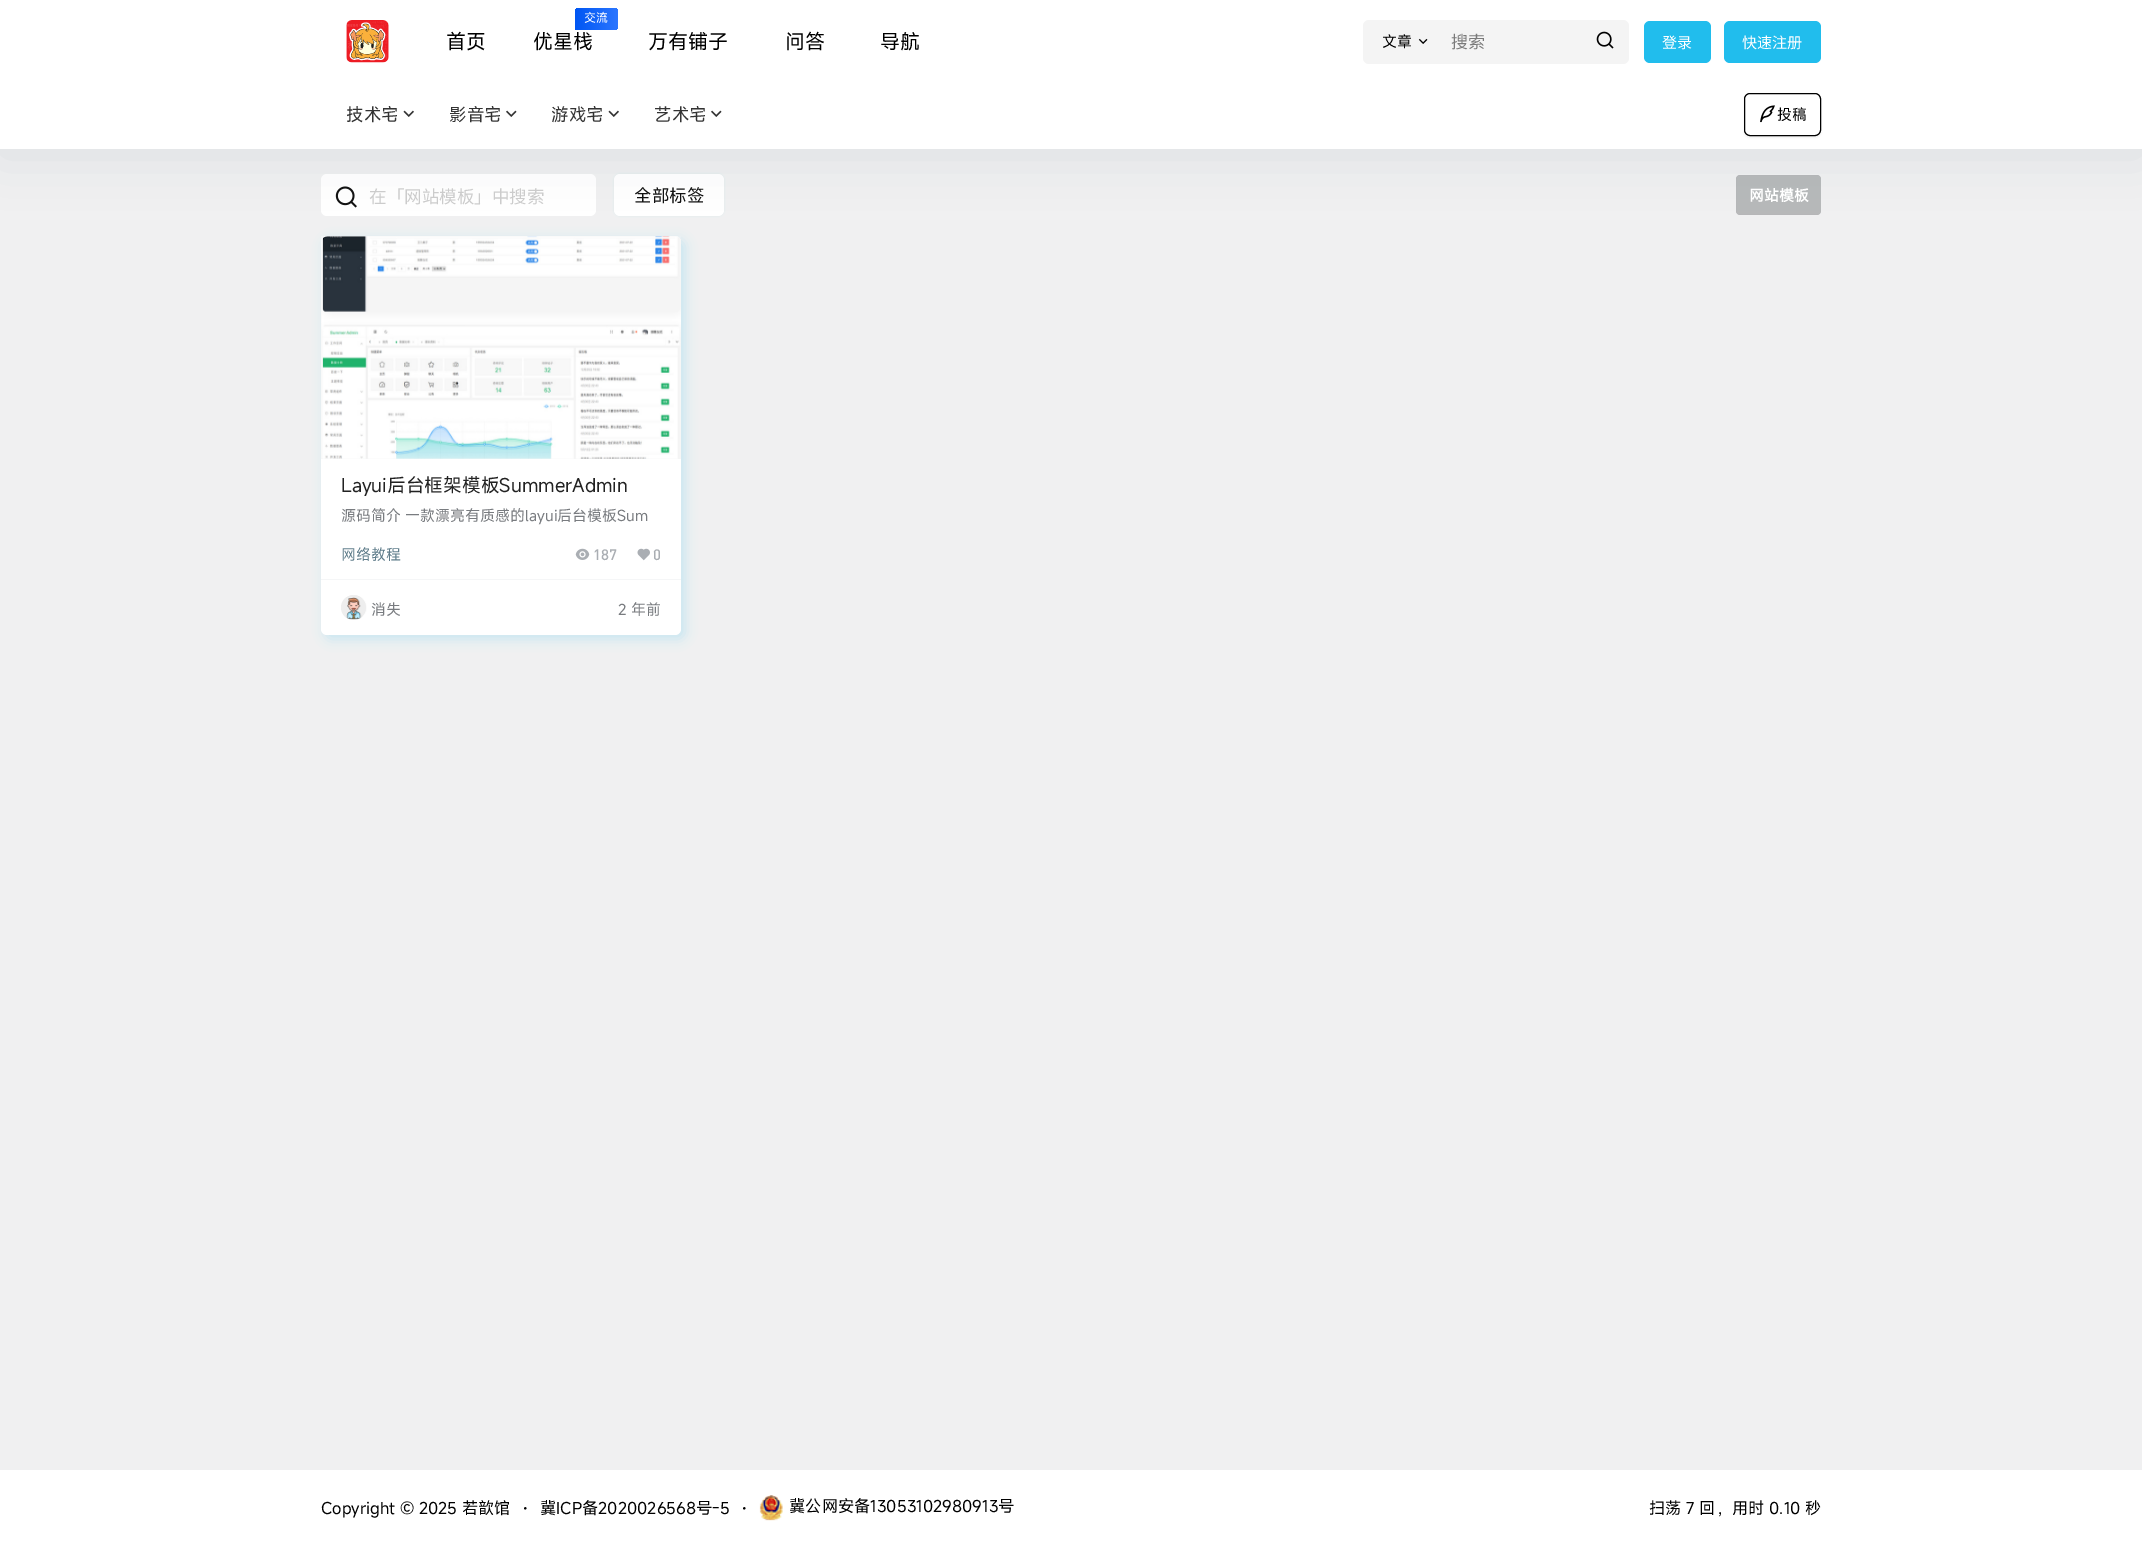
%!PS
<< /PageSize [2142 1544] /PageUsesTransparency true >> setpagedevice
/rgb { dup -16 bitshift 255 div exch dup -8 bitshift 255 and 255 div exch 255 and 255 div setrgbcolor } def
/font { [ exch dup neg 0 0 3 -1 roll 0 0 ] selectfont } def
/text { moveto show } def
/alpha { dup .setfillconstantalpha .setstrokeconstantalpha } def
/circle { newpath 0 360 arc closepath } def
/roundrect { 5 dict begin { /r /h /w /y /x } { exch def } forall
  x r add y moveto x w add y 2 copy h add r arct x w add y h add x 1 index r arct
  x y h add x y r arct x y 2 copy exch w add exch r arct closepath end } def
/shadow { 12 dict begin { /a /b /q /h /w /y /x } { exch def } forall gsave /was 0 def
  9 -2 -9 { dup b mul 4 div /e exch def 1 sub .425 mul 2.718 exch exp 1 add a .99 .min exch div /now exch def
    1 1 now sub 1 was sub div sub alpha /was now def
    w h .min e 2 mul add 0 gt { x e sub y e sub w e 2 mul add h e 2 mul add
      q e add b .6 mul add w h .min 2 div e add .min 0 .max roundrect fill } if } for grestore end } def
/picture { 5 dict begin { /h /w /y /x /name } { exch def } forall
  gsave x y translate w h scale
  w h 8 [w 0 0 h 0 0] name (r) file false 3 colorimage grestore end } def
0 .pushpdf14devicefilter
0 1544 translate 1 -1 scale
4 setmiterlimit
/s1 { /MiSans-Regular 20 font 16#000000 rgb } def
/s2 { /MiSans-Regular 12 font 16#FFFFFF rgb } def
/s3 { /MiSans-Regular 15 font 16#000000 rgb } def
/s4 { /NotoSansCJKSC-Regular 17 font 16#7A7A7A rgb } def
/s5 { /NotoSansCJKSC-Regular 15 font 16#FFFFFF rgb } def
/s6 { /MiSans-Regular 17.5 font 16#333333 rgb } def
/s7 { /NotoSansCJKSC-Regular 17.5 font 16#CCCCCC rgb } def
/s8 { /MiSans-Regular 17.5 font 16#121212 rgb } def
/s9 { /MiSans-Bold 15 font 16#FFFFFF rgb } def
/s10 { /MiSans-Regular 18.75 font 16#222222 rgb } def
/s11 { /MiSans-Regular 15 font 16#797C80 rgb } def
/s12 { /MiSans-Regular 15 font 16#607D8B rgb } def
/s13 { /DIN-Medium 15 font 16#AAAEB3 rgb } def
/s14 { /MiSans-Regular 16.25 font 16#000000 rgb } def
/s15 { /WenQuanYiZenHei-Medium 16.25 font 16#000000 rgb } def
16#F0F0F1 rgb
0 0 2142 1544 rectfill
16#FFFFFF rgb
321 174 275 42 6 roundrect fill
(pic7.raw) 335 186 22 22 picture
16#627C99 rgb
614 174 110 42 6 1 0.1 shadow
16#FFFFFF rgb
614 174 110 42 6 roundrect fill
(pic8.raw) 1736 175 85 40 picture
0.26 alpha
16#000000 rgb
1736 175 85 40 4 roundrect fill
1 alpha
16#113A5D rgb
0 6 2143 149 0 25 0.1 shadow
16#FFFFFF rgb
0 0 2142 149 rectfill
(pic1.raw) 346 20 43 43 picture
s1
(首页) 446 49 text
gsave 580 8 moveto 613 8 lineto 616 8 618 10 618 13 curveto 618 25 lineto 618 28 616 30 613 30 curveto 575 30 lineto 575 13 lineto 575 10 577 8 580 8 curveto closepath clip newpath
<< /ShadingType 2 /ColorSpace /DeviceRGB /Coords [575 18 618 18] /Extend [true true] /Function << /FunctionType 2 /Domain [0 1] /C0 [0 0.337 0.953] /C1 [0.169 0.463 1] /N 1 >> >> shfill grestore
s2
(交流) 584 22 text
s1
(优星栈) 533 49 text
(万有铺子) 648 49 text
(问答) 785 49 text
(导航) 880 49 text
16#F4F4F4 rgb
1363 20 266 44 6 roundrect fill
s3
(文章) 1382 47 text
(pic2.raw) 1418 38 10 6 picture
s4
(搜索) 1451 48 text
(pic3.raw) 1596 31 18 18 picture
16#21BDED rgb
1644 21 67 42 6 roundrect fill
s5
(登录) 1662 48 text
16#21BDED rgb
1724 21 97 42 6 roundrect fill
s5
(快速注册) 1742 48 text
s6
(技术宅) 346 121 text
(pic4.raw) 403 110 11 7 picture
(影音宅) 449 121 text
(pic5.raw) 506 110 11 7 picture
(游戏宅) 551 121 text
(pic4.raw) 608 110 11 7 picture
(艺术宅) 654 121 text
(pic5.raw) 711 110 11 7 picture
gsave
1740 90 moveto 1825 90 lineto 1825 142 lineto 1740 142 lineto closepath 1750 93 moveto 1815 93 lineto 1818.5 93 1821 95.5 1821 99 curveto 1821 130 lineto 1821 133.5 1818.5 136 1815 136 curveto 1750 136 lineto 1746.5 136 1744 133.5 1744 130 curveto 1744 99 lineto 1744 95.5 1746.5 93 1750 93 curveto closepath eoclip newpath
16#000000 rgb
1744 94 77 44 6 1 0.05 shadow
grestore
16#000000 rgb
1744.5 93.5 76 42 5.5 roundrect stroke
(pic6.raw) 1760 105 15 18 picture
s3
(投稿) 1777 120 text
s7
(在「网站模板」中搜索) 369 203 text
s8
(全部标签) 634 202 text
s9
(网站模板) 1749 201 text
16#21BDED rgb
325 240 360 399 6 6 0.2 shadow
16#FFFFFF rgb
321 236 360 399 6 roundrect fill
16#F5F6F7 rgb
327 236 moveto 675 236 lineto 678.5 236 681 238.5 681 242 curveto 681 459 lineto 321 459 lineto 321 242 lineto 321 238.5 323.5 236 327 236 curveto closepath fill
(pic9.raw) 321 236 360 223 picture
s10
(Layui后台框架模板SummerAdmin) 341 492 text
s11
(源码简介 一款漂亮有质感的layui后台模板Sum) 341 521 text
s12
(网络教程) 341 560 text
(pic10.raw) 575 548 15 12 picture
s13
(187) 593 560 text
(pic11.raw) 637 548 13 13 picture
(0) 653 560 text
16#F5F6F7 rgb
321 579 360 1 rectfill
16#EEEEEE rgb
353.5 607.5 12.5 circle fill
(pic12.raw) 346 595 21 25 picture
s11
(消失) 371 615 text
(2 年前) 618 615 text
16#FFFFFF rgb
0 1470 2142 74 rectfill
s14
(Copyright © 2025 若歆馆) 321 1514 text
s15
(・) 517 1514 text
s14
(冀ICP备2020026568号-5) 540 1514 text
s15
(・) 736 1514 text
(pic13.raw) 759 1495 24 26 picture
s14
(冀公网安备13053102980913号) 789 1512 text
(扫荡 7 回，用时 0.10 秒) 1649 1514 text
.poppdf14devicefilter showpage
